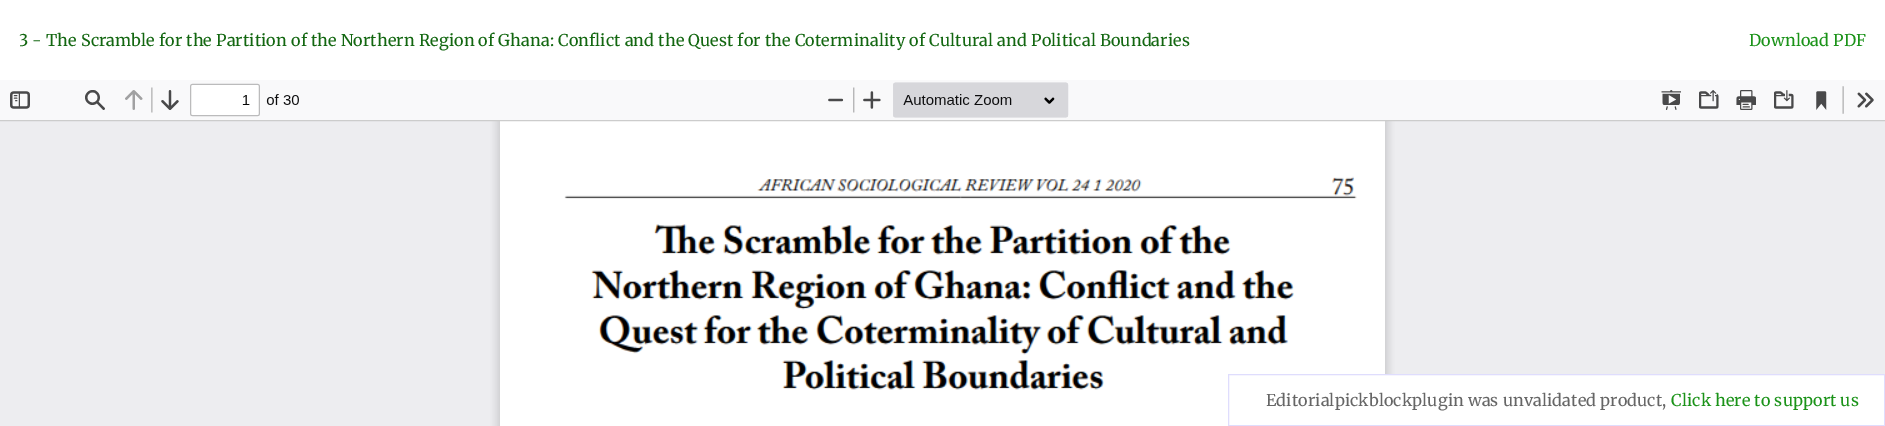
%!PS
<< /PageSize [1885 426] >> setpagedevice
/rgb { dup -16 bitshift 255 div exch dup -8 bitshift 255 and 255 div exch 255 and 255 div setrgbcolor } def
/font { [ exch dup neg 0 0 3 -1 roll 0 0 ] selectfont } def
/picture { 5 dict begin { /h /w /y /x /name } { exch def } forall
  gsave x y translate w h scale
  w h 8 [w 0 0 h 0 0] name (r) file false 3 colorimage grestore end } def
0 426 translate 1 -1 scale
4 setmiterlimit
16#FFFFFF rgb
0 0 1885 426 rectfill
/Merriweather-Light 16.25 font
16#136711 rgb
19 46 moveto 0.12 0 (3 - The Scramble for the Partition of the Northern Region of Ghana: Conflict and the Quest for the Coterminality of Cultural and Political Boundaries) ashow
16#1B9319 rgb
1749 46 moveto 0.12 0 (Download PDF) ashow
(pic1.raw) 0 80 1885 346 picture
16#FFFFFF rgb
1385 375 499 50 rectfill
16#DFDDFD rgb
1228.5 374.5 656 51 rectstroke
16#666666 rgb
1266 406 moveto 0.12 0 (Editorialpickblockplugin was unvalidated product,) ashow
16#1B9319 rgb
1671 406 moveto 0.12 0 (Click here to support us) ashow
showpage
